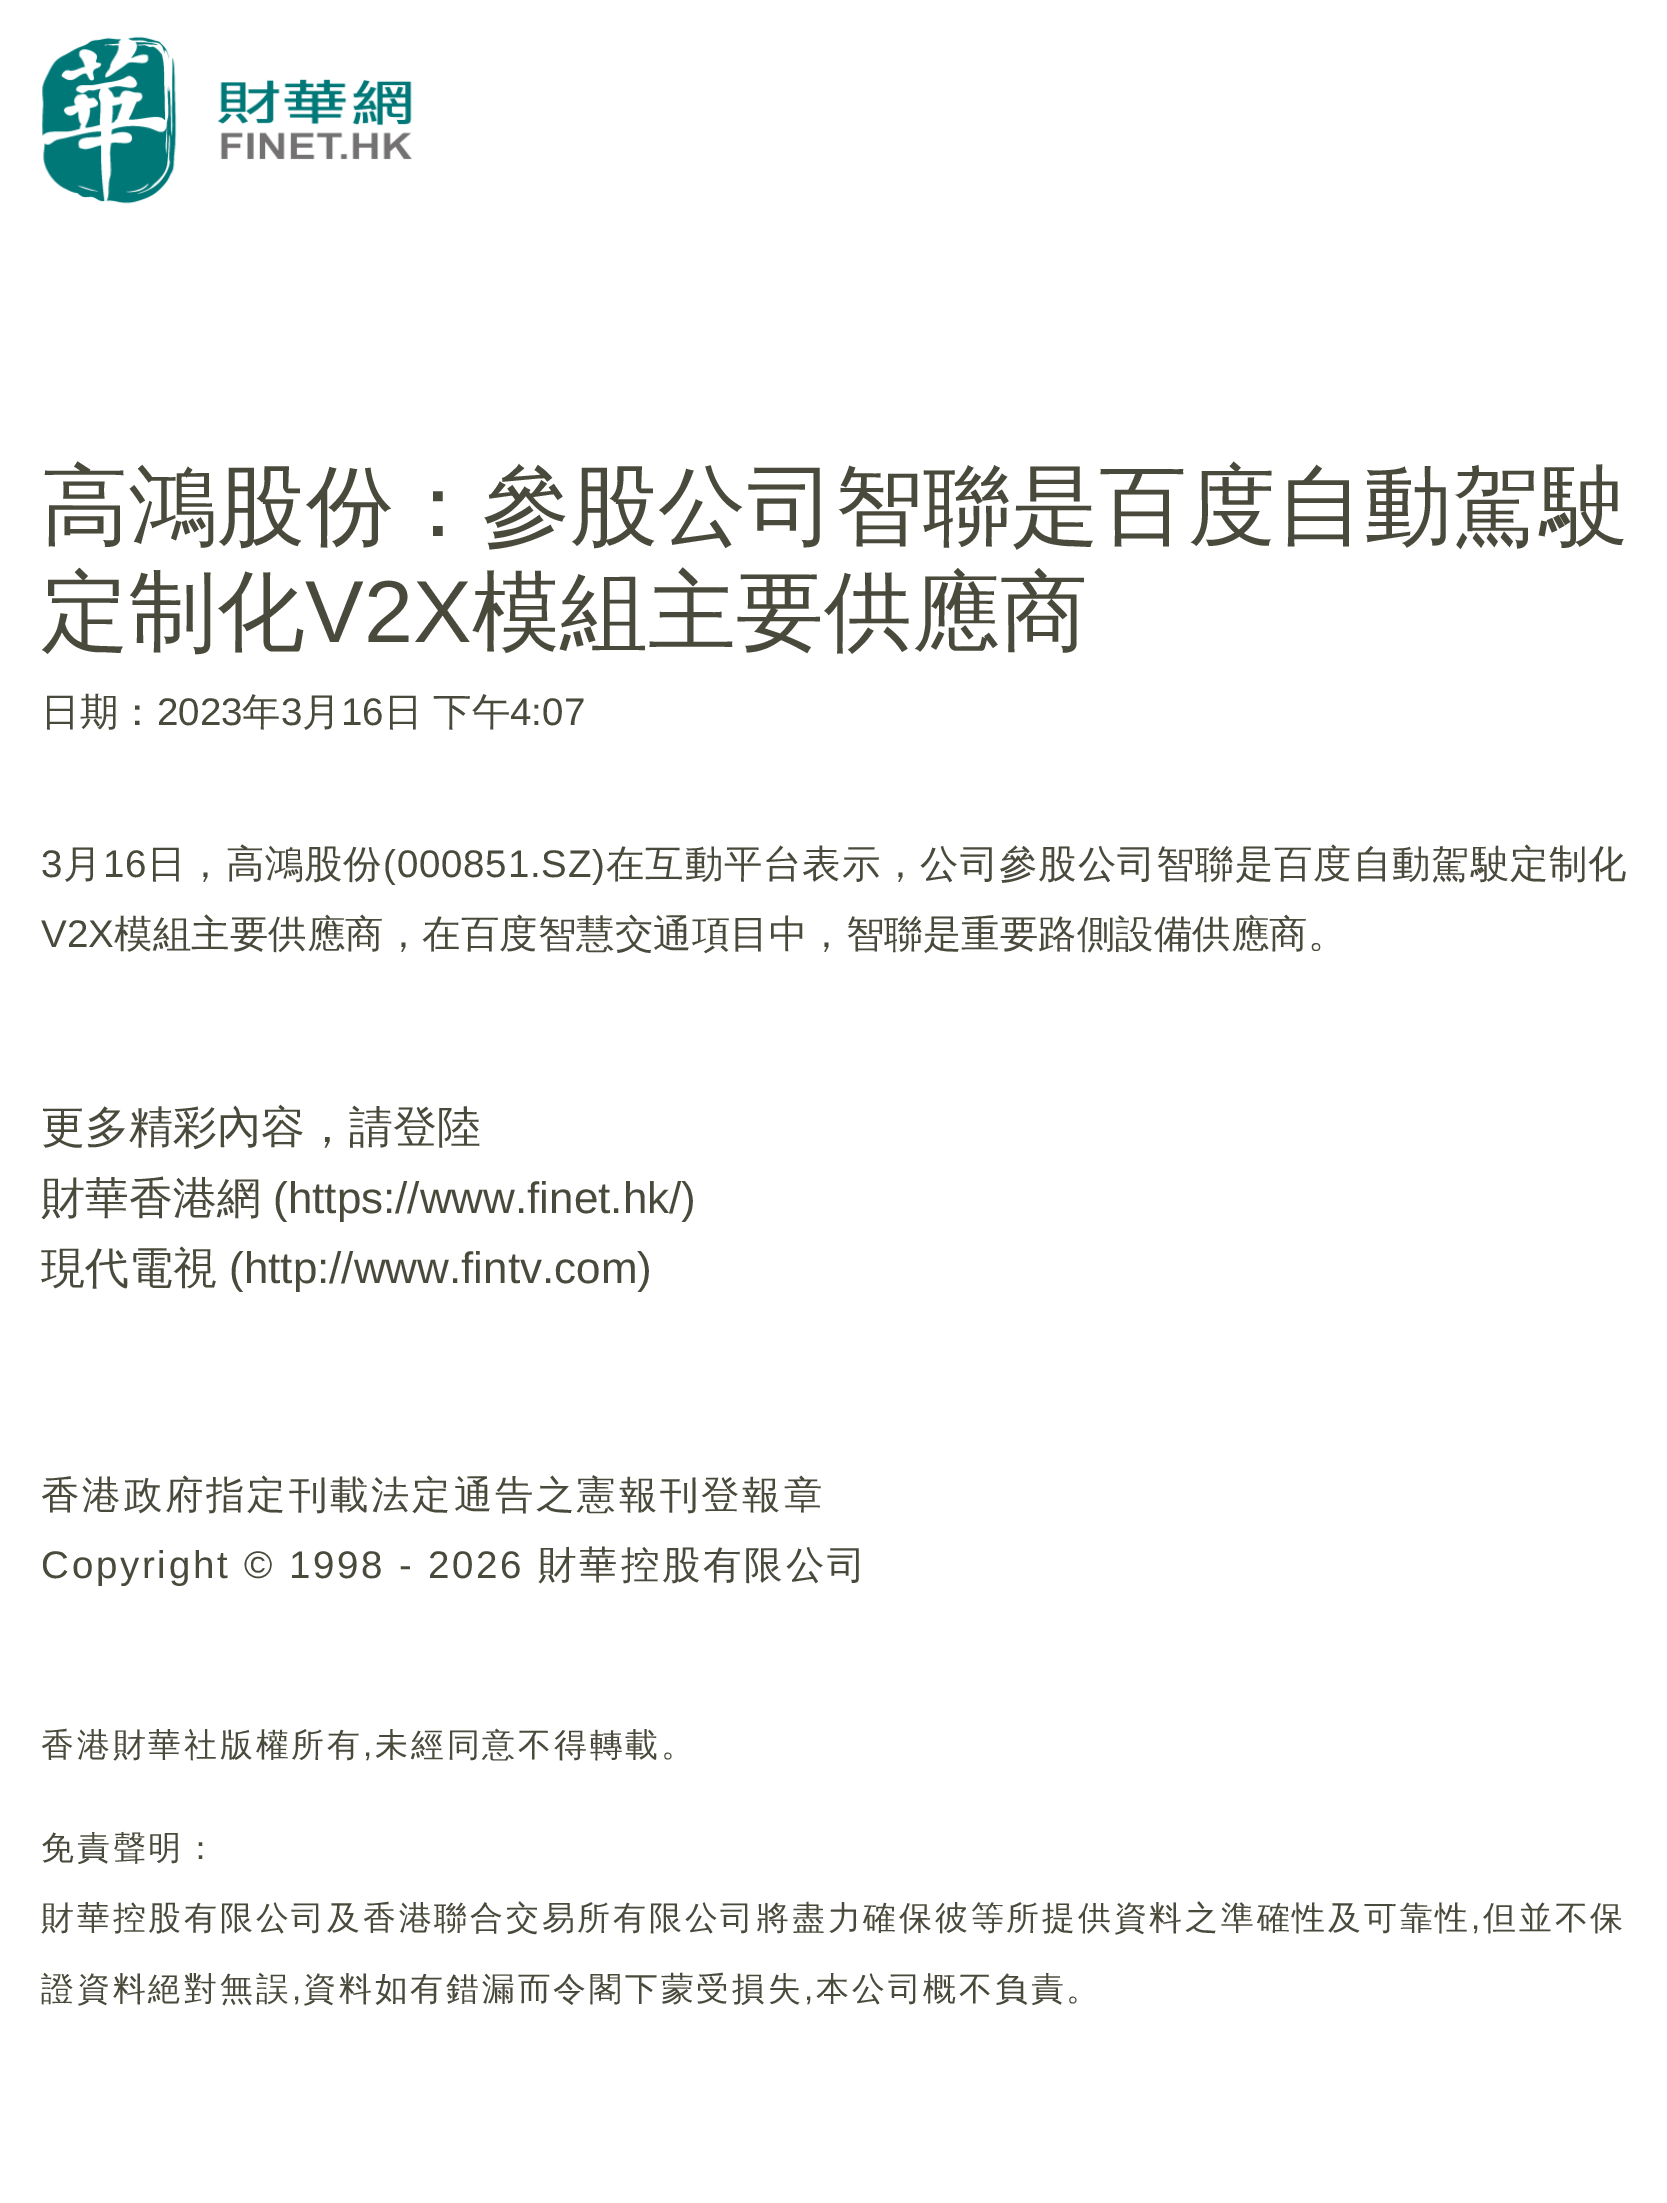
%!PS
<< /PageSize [1667 2203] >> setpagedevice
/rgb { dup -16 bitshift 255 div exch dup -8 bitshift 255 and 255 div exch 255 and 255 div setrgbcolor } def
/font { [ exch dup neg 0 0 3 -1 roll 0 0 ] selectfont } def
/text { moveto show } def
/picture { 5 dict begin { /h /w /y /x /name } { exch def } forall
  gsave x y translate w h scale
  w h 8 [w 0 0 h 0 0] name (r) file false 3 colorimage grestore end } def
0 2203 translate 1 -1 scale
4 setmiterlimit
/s1 { /WenQuanYiZenHei-Medium 88 font 16#4A4A3C rgb } def
/s2 { /LiberationSans-Regular 88 font 16#4A4A3C rgb } def
/s3 { /WenQuanYiZenHei-Medium 38.5 font 16#4A4A3C rgb } def
/s4 { /LiberationSans-Regular 38.5 font 16#4A4A3C rgb } def
/s5 { /WenQuanYiZenHei-Medium 44 font 16#4A4A3C rgb } def
/s6 { /LiberationSans-Regular 44 font 16#4A4A3C rgb } def
16#FFFFFF rgb
0 0 1667 2203 rectfill
(pic1.raw) 41 36 371 168 picture
/WenQuanYiZenHei-Medium 88 font
16#4A4A3C rgb
41 536 moveto 0.2 0 (高鴻股份：參股公司智聯是百度自動駕駛) ashow
(定制化) 41 642 text
s2
(V2X) 305 642 text
s1
(模組主要供應商) 472 642 text
s3
(日期：) 41 725 text
s4
(2023) 157 725 text
s3
(年) 242 725 text
s4
(3) 281 725 text
s3
(月) 302 725 text
s4
(16) 341 725 text
/WenQuanYiZenHei-Medium 38.5 font
384 725 moveto -1 0 32 (日 下午) widthshow
s4
(4:07) 510 725 text
41 877 moveto 0.8 0 (3) ashow
/WenQuanYiZenHei-Medium 38.5 font
63 877 moveto 0.8 0 (月) ashow
/LiberationSans-Regular 38.5 font
103 877 moveto 0.8 0 (16) ashow
/WenQuanYiZenHei-Medium 38.5 font
147 877 moveto 0.8 0 (日，高鴻股份) ashow
/LiberationSans-Regular 38.5 font
383 877 moveto 0.8 0 (\(000851.SZ\)) ashow
/WenQuanYiZenHei-Medium 38.5 font
606 877 moveto 0.8 0 (在互動平台表示，公司參股公司智聯是百度自動駕駛定制化) ashow
s4
(V2X) 41 947 text
s3
(模組主要供應商，在百度智慧交通項目中，智聯是重要路側設備供應商。) 114 947 text
s5
(更多精彩內容，請登陸) 41 1142 text
(財華香港網) 41 1213 text
s6
(\(https://www.finet.hk/\)) 273 1213 text
s5
(現代電視) 41 1283 text
s6
(\(http://www.fintv.com\)) 229 1283 text
/WenQuanYiZenHei-Medium 38.5 font
41 1508 moveto 2.75 0 (香港政府指定刊載法定通告之憲報刊登報章) ashow
/LiberationSans-Regular 38.5 font
41 1578 moveto 2.75 0 (Copyright © 1998 - 2026) ashow
/WenQuanYiZenHei-Medium 38.5 font
538 1578 moveto 2.75 0 (財華控股有限公司) ashow
/WenQuanYiZenHei-Medium 33 font
41 1756 moveto 2.75 0 (香港財華社版權所有) ashow
/LiberationSans-Regular 33 font
363 1756 moveto 2.75 0 (,) ashow
/WenQuanYiZenHei-Medium 33 font
375 1756 moveto 2.75 0 (未經同意不得轉載。) ashow
41 1859 moveto 2.75 0 (免責聲明：) ashow
41 1929 moveto 2.75 0 (財華控股有限公司及香港聯合交易所有限公司將盡力確保彼等所提供資料之準確性及可靠性) ashow
/LiberationSans-Regular 33 font
1471 1929 moveto 2.75 0 (,) ashow
/WenQuanYiZenHei-Medium 33 font
1483 1929 moveto 2.75 0 (但並不保) ashow
41 2000 moveto 2.75 0 (證資料絕對無誤) ashow
/LiberationSans-Regular 33 font
292 2000 moveto 2.75 0 (,) ashow
/WenQuanYiZenHei-Medium 33 font
303 2000 moveto 2.75 0 (資料如有錯漏而令閣下蒙受損失) ashow
/LiberationSans-Regular 33 font
804 2000 moveto 2.75 0 (,) ashow
/WenQuanYiZenHei-Medium 33 font
816 2000 moveto 2.75 0 (本公司概不負責。) ashow
showpage
